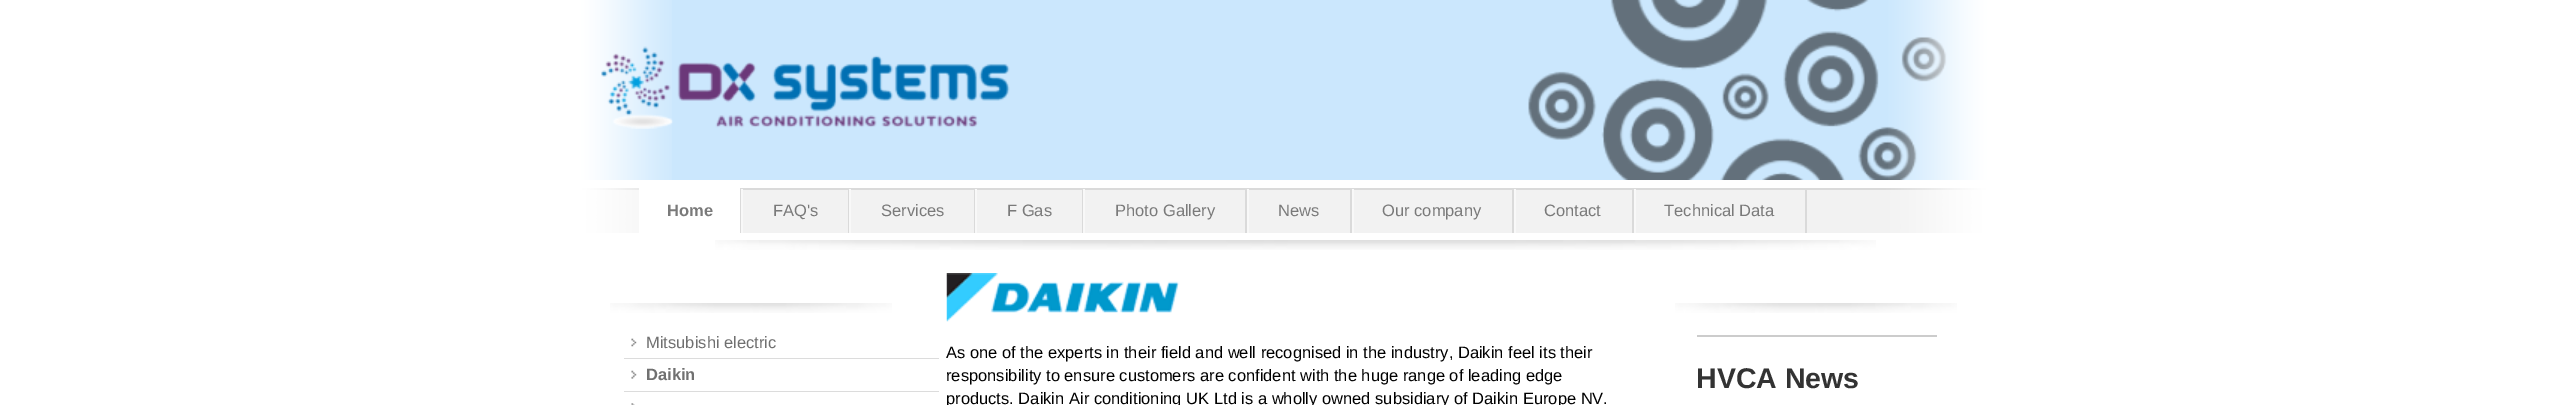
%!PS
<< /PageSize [2566 405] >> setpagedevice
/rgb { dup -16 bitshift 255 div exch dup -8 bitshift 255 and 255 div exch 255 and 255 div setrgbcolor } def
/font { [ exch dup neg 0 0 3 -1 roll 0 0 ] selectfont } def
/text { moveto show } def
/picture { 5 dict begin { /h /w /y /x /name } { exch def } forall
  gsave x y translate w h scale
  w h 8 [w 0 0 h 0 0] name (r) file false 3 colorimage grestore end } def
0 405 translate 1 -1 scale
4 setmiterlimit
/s1 { /LiberationSans-Bold 16.5 font 16#7A7A7A rgb } def
/s2 { /LiberationSans-Regular 16.5 font 16#7A7A7A rgb } def
/s3 { /LiberationSans-Regular 16.5 font 16#707070 rgb } def
/s4 { /LiberationSans-Bold 16.5 font 16#707070 rgb } def
/s5 { /LiberationSans-Regular 16.5 font 16#000000 rgb } def
/s6 { /LiberationSans-Bold 28.5 font 16#333333 rgb } def
16#FFFFFF rgb
0 0 2566 405 rectfill
16#CBE7FD rgb
581 0 1407 180 rectfill
(pic1.raw) 579 0 93 180 picture
(pic4.raw) 1528 0 419 180 picture
(pic2.raw) 1888 0 101 180 picture
(pic3.raw) 601 46 409 83 picture
16#F2F2F2 rgb
580 190 1408 43 rectfill
16#DADADA rgb
579 188 1410 2 rectfill
(pic5.raw) 579 188 1410 45 picture
16#FFFFFF rgb
639 188 101 45 rectfill
16#DADADA rgb
740 188 2 45 rectfill
s1
(Home) 667 216 text
16#DADADA rgb
848 189 1 44 rectfill
16#F8F8F8 rgb
741 189 2 44 rectfill
s2
(FAQ's) 773 216 text
16#DADADA rgb
974 189 1 44 rectfill
16#F8F8F8 rgb
849 189 2 44 rectfill
s2
(Services) 881 216 text
16#DADADA rgb
1082 189 1 44 rectfill
16#F8F8F8 rgb
975 189 2 44 rectfill
s2
(F Gas) 1007 216 text
16#DADADA rgb
1245 189 2 44 rectfill
16#F8F8F8 rgb
1083 189 2 44 rectfill
s2
(Photo Gallery) 1115 216 text
16#DADADA rgb
1350 189 2 44 rectfill
16#F8F8F8 rgb
1247 189 2 44 rectfill
s2
(News) 1278 216 text
16#DADADA rgb
1512 189 2 44 rectfill
16#F8F8F8 rgb
1352 189 2 44 rectfill
s2
(Our company) 1382 216 text
16#DADADA rgb
1632 189 2 44 rectfill
16#F8F8F8 rgb
1514 189 2 44 rectfill
s2
(Contact) 1544 216 text
16#DADADA rgb
1805 189 2 44 rectfill
16#F8F8F8 rgb
1634 189 2 44 rectfill
s2
(Technical Data) 1664 216 text
(pic6.raw) 715 240 1161 10 picture
(pic7.raw) 610 303 282 10 picture
16#707070 rgb
624 338 315 21 rectfill
(pic8.raw) 624 327 315 32 picture
(Mitsubishi electric) 646 348 text
624 370 315 22 rectfill
(pic9.raw) 624 358 315 34 picture
s4
(Daikin) 646 380 text
631 403 4 2 rectfill
(pic10.raw) 624 391 315 14 picture
(pic11.raw) 946 273 234 49 picture
s5
(As one of the experts in their field and well recognised in the industry, Daikin feel its their) 946 358 text
(responsibility to ensure customers are confident with the huge range of leading edge) 946 381 text
(products. Daikin Air conditioning UK Ltd is a wholly owned subsidiary of Daikin Europe NV.) 946 404 text
(pic7.raw) 1675 303 282 10 picture
16#CCCCCC rgb
1697 335 240 2 rectfill
s6
(HVCA News) 1696 388 text
showpage
